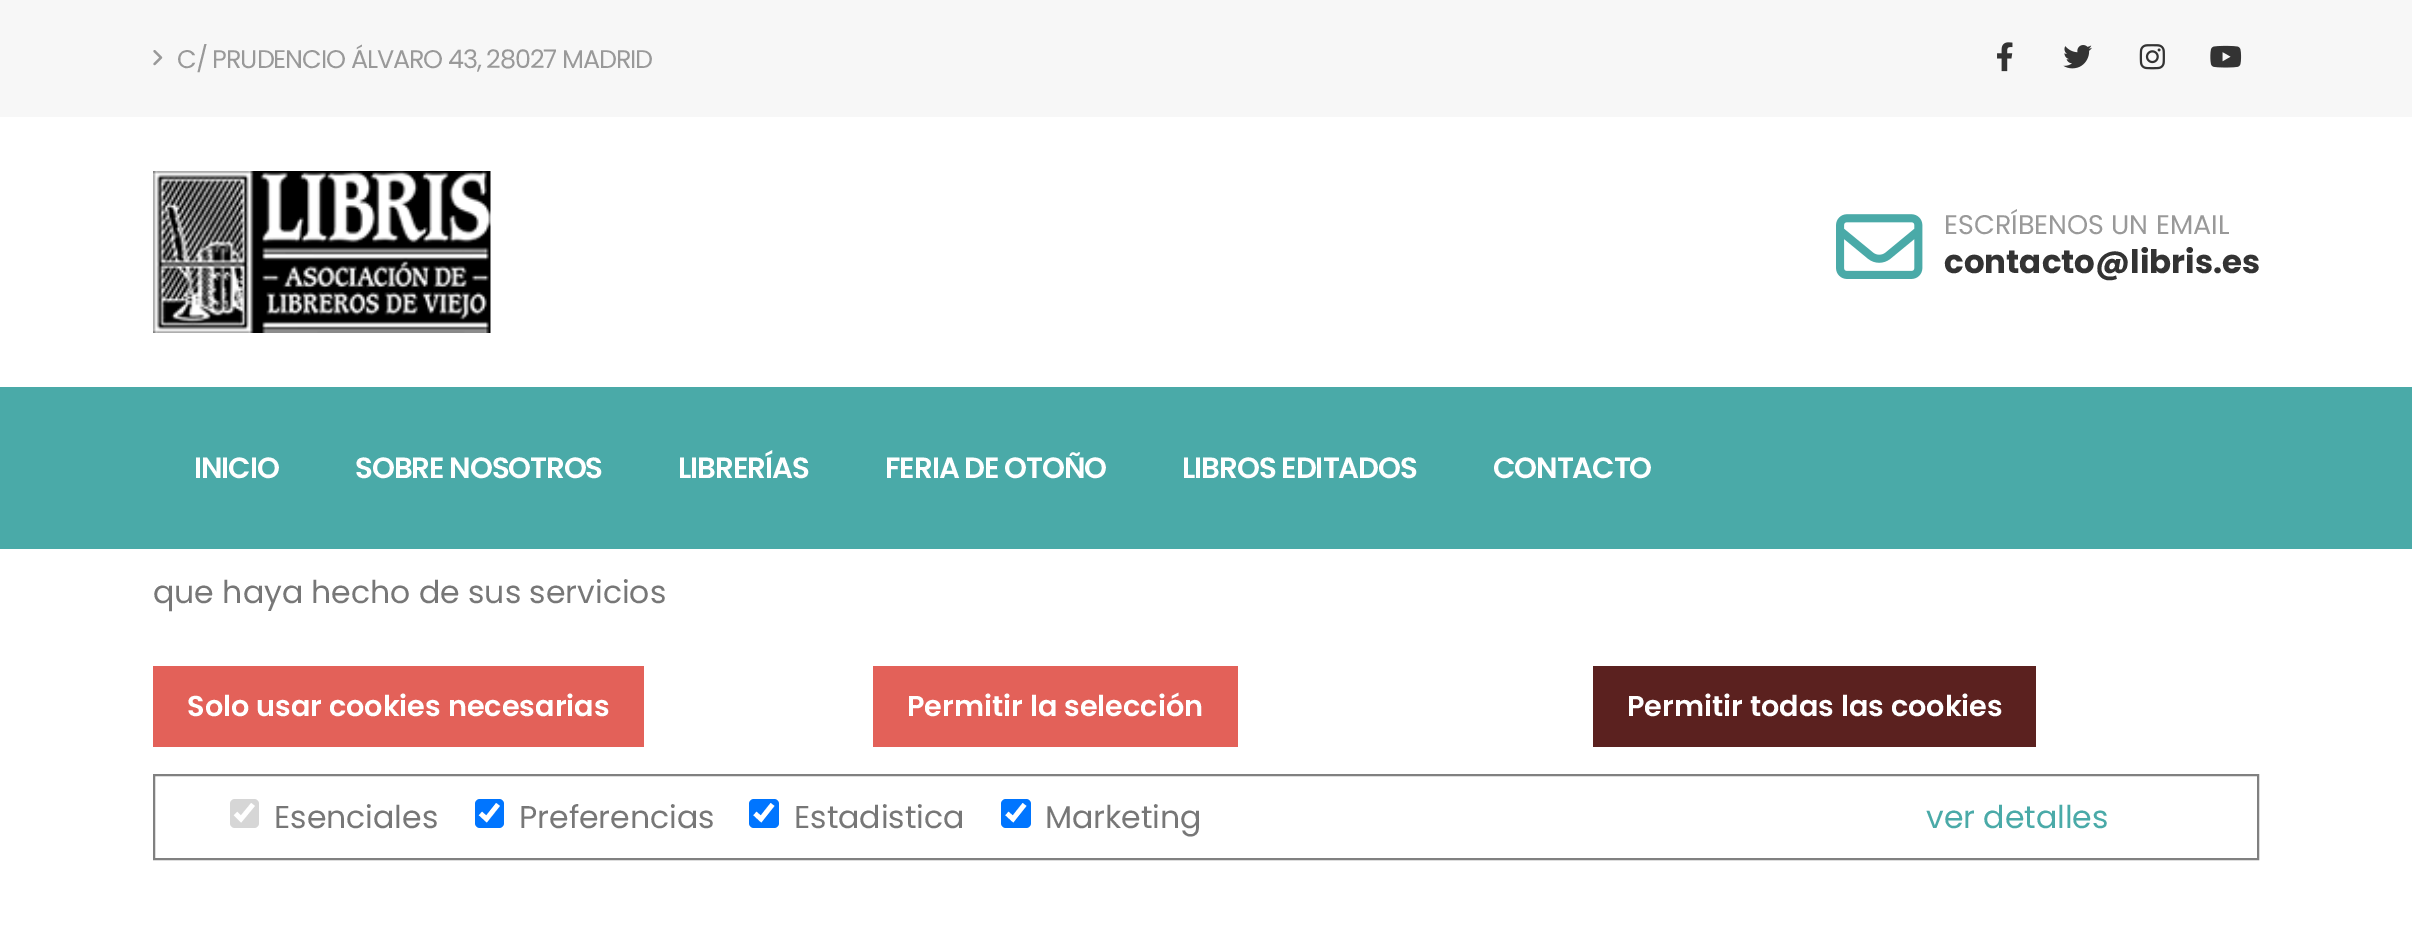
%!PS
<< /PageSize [2412 931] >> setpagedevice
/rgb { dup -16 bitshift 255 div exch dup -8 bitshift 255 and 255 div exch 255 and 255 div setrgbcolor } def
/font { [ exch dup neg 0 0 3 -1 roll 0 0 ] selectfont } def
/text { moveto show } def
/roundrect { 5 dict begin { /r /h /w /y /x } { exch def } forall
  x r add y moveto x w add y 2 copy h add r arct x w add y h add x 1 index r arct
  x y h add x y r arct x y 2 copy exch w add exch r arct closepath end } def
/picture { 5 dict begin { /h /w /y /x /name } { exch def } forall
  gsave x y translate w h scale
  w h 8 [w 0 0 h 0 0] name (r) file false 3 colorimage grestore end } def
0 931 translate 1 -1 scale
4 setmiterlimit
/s1 { /Poppins-Regular 27 font 16#999999 rgb } def
/s2 { /Poppins-Bold 32.5 font 16#333333 rgb } def
/s3 { /Poppins-Regular 31.5 font 16#777777 rgb } def
/s4 { /Poppins-SemiBold 28.75 font 16#FFFFFF rgb } def
/s5 { /Poppins-Regular 31.5 font 16#4AAAA8 rgb } def
16#FFFFFF rgb
0 0 2412 931 rectfill
16#F7F7F7 rgb
0 0 2412 117 rectfill
(pic1.raw) 153 50 10 16 picture
/Poppins-Regular 25.5 font
16#999999 rgb
177 68 moveto -1.1 0 (C/ PRUDENCIO ÁLVARO 43, 28027 MADRID) ashow
(pic2.raw) 1997 42 16 30 picture
(pic3.raw) 2063 45 29 24 picture
(pic4.raw) 2139 44 26 26 picture
(pic5.raw) 2210 45 32 23 picture
(pic6.raw) 153 171 338 162 picture
(pic7.raw) 1836 214 87 65 picture
s1
(ESCRÍBENOS UN EMAIL) 1944 234 text
s2
(contacto@libris.es) 1944 273 text
16#4AAAA8 rgb
0 387 2412 162 rectfill
/Poppins-SemiBold 29.25 font
16#FFFFFF rgb
194 478 moveto -1.1 0 (INICIO) ashow
355 478 moveto -1.1 0 (SOBRE NOSOTROS) ashow
678 478 moveto -1.1 0 (LIBRERÍAS) ashow
885 478 moveto -1.1 0 (FERIA DE OTOÑO) ashow
1182 478 moveto -1.1 0 (LIBROS EDITADOS) ashow
1493 478 moveto -1.1 0 (CONTACTO) ashow
s3
(que haya hecho de sus servicios) 153 603 text
16#E36159 rgb
153 666 491 81 rectfill
s4
(Solo usar cookies necesarias) 187 716 text
16#E36159 rgb
873 666 365 81 rectfill
s4
(Permitir la selección) 907 716 text
16#5B211F rgb
1593 666 443 81 rectfill
s4
(Permitir todas las cookies) 1627 716 text
16#808080 rgb
2 setlinewidth
154 775 2104 84 rectstroke
16#D6D6D6 rgb
230 799 29 29 5 roundrect fill
16#FFFFFF rgb
4.7 setlinewidth
235.5 813.5 moveto 241 819 lineto 253 804.5 lineto stroke
s3
(Esenciales) 274 828 text
16#0075FF rgb
475 799 29 29 5 roundrect fill
16#FFFFFF rgb
480.5 813.5 moveto 486.5 819 lineto 498 804.5 lineto stroke
s3
(Preferencias) 519 828 text
16#0075FF rgb
749 799 30 29 5 roundrect fill
16#FFFFFF rgb
755 813.5 moveto 761 819 lineto 772.5 804.5 lineto stroke
s3
(Estadistica) 794 828 text
16#0075FF rgb
1001 799 30 29 5 roundrect fill
16#FFFFFF rgb
1007 813.5 moveto 1013 819 lineto 1024.5 804.5 lineto stroke
s3
(Marketing) 1045 828 text
s5
(ver detalles) 1926 828 text
showpage
